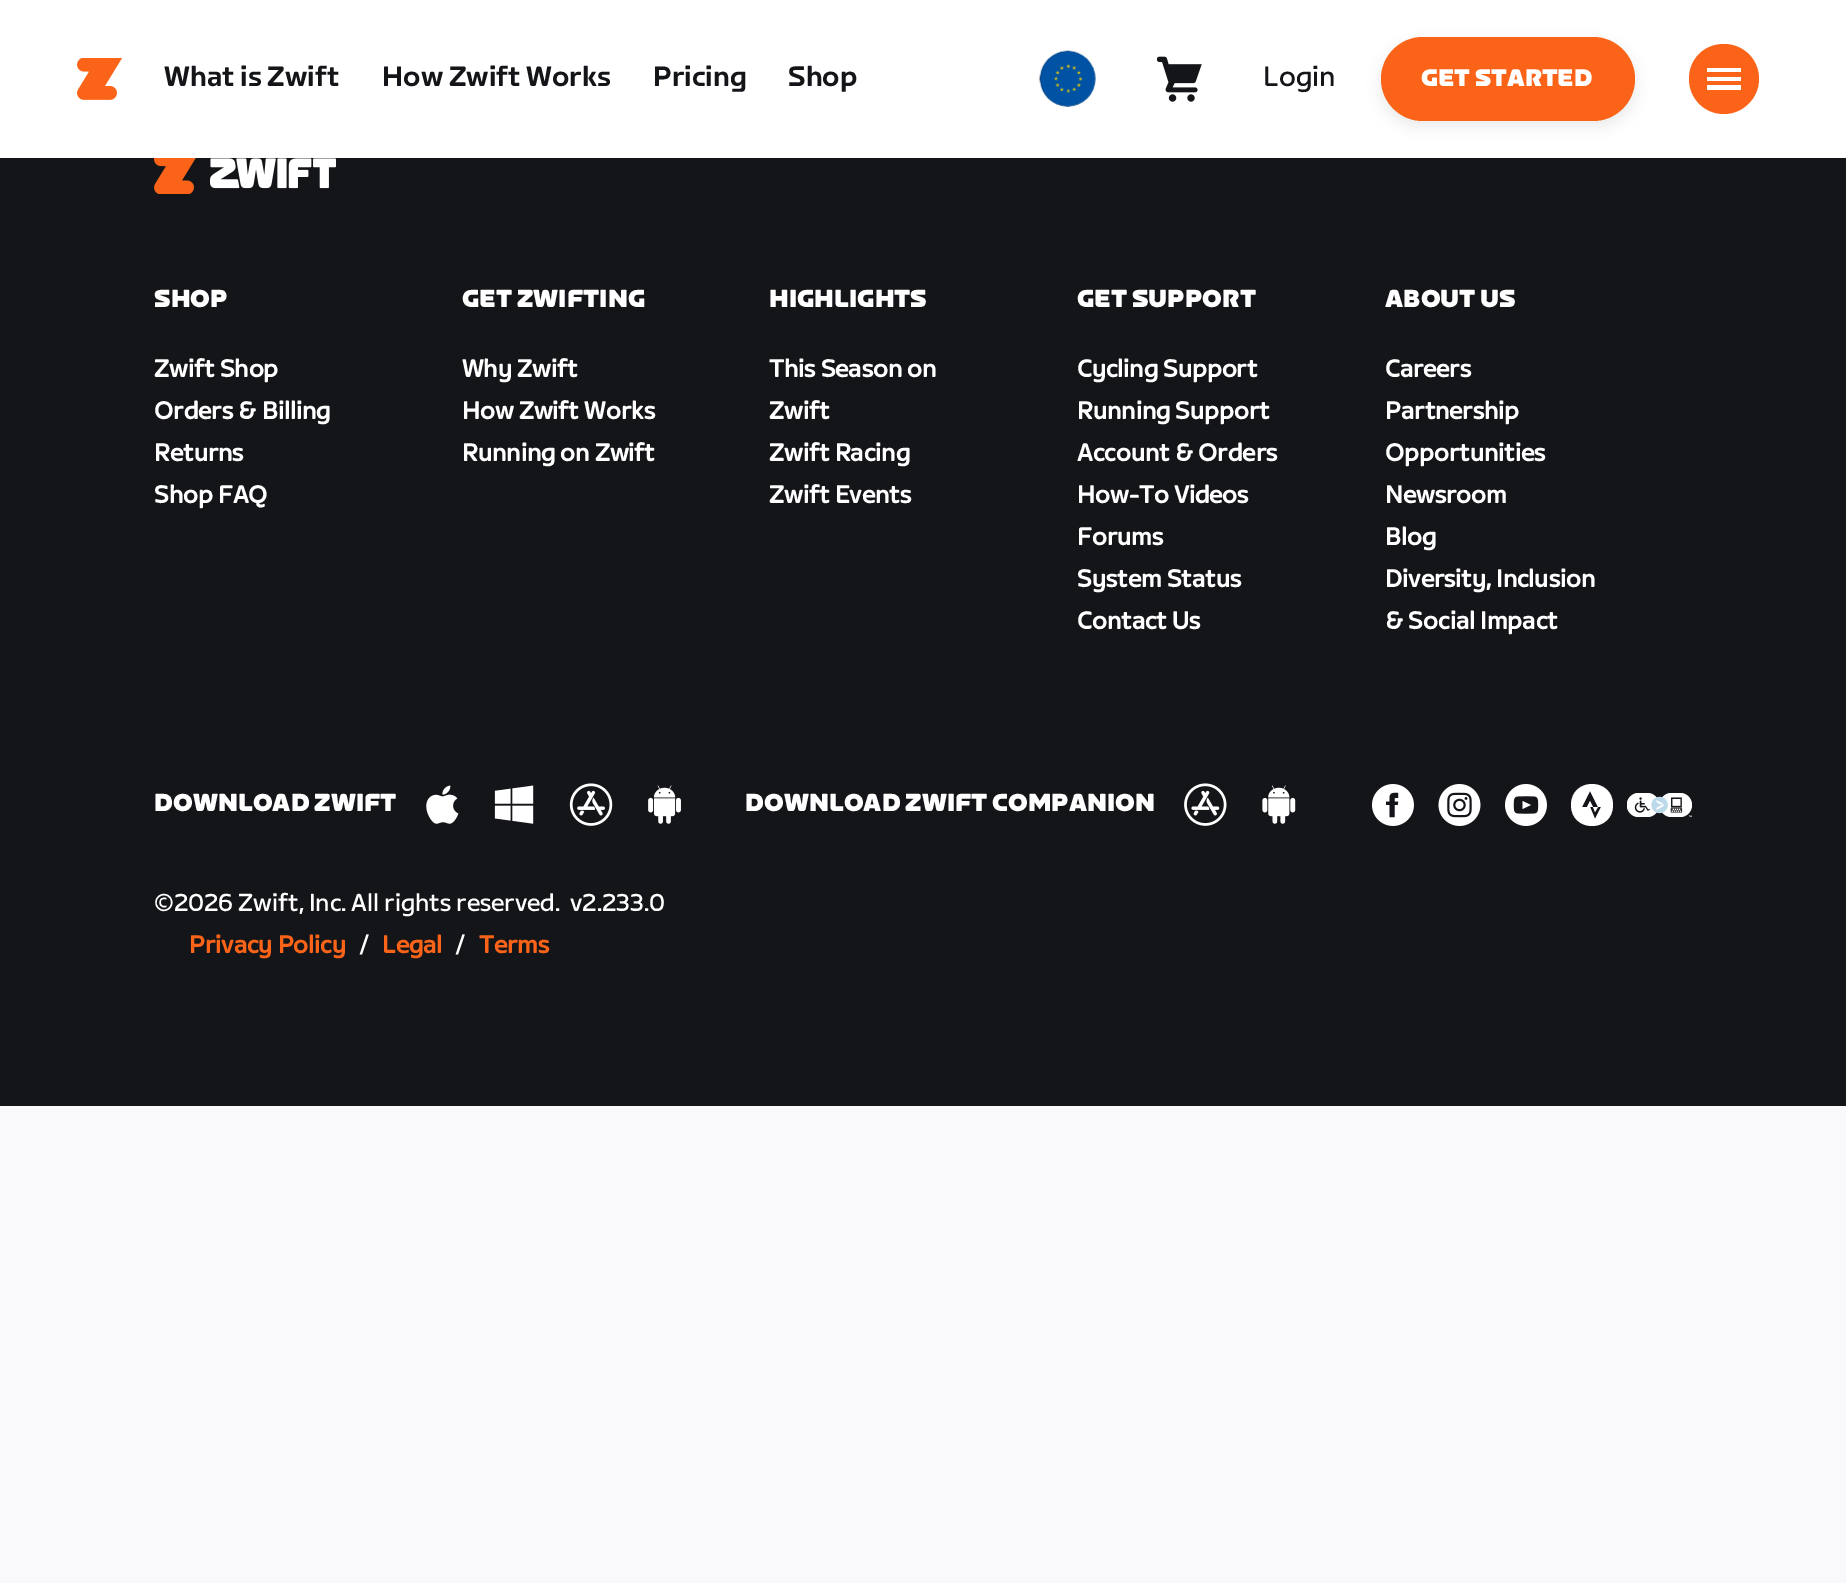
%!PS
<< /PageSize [1846 1583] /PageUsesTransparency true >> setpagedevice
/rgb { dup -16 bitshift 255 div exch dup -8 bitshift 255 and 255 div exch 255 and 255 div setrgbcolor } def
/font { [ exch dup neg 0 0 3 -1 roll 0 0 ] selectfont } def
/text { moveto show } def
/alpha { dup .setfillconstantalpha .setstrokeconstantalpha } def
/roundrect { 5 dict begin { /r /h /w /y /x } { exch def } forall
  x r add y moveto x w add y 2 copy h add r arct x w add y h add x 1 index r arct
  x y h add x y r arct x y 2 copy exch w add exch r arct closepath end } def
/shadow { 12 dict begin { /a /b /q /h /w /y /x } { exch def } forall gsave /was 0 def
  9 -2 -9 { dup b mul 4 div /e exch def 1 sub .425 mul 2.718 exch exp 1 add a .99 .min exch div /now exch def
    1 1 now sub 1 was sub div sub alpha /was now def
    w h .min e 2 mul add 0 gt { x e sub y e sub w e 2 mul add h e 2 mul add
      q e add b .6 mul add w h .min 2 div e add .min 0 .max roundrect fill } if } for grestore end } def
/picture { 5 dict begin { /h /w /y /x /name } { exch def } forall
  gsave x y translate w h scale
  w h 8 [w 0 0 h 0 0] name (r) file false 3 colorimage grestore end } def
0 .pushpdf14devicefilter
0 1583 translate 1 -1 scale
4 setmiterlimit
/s1 { /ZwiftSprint-Medium 28 font 16#141518 rgb } def
/s2 { /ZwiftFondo-Regular 28 font 16#141518 rgb } def
/s3 { /ZwiftSprint-Black 24 font 16#FFFFFF rgb } def
/s4 { /ZwiftSprint-Black 24.5 font 16#FFFFFF rgb } def
/s5 { /ZwiftFondo-Bold 24.5 font 16#FFFFFF rgb } def
/s6 { /ZwiftFondo-Regular 24.5 font 16#FFFFFF rgb } def
/s7 { /ZwiftFondo-Bold 24.5 font 16#FB6418 rgb } def
16#F9F9FB rgb
0 0 1846 1583 rectfill
16#FFFFFF rgb
0 0 1846 158 rectfill
(pic1.raw) 77 58 45 42 picture
s1
(What is Zwift) 164 86 text
(How Zwift Works) 382 86 text
(Pricing) 653 86 text
(Shop) 788 86 text
(pic2.raw) 1038 50 58 57 picture
(pic3.raw) 1157 56 45 46 picture
s2
(Login) 1263 86 text
16#000000 rgb
1381 44 254 82 41 7 0.08 shadow
16#FB6418 rgb
1381 37 254 84 42 roundrect fill
s3
(GET STARTED) 1421 86 text
16#FB6418 rgb
1689 79 moveto 1689 59 1704 44 1724 44 curveto 1743 44 1759 59 1759 79 curveto 1759 98 1743 114 1724 114 curveto 1704 114 1689 98 1689 79 curveto closepath fill
16#FFFFFF rgb
1707 68 34 4 rectfill
1707 77 34 4 rectfill
1707 85 34 5 rectfill
16#141518 rgb
0 158 1846 948 rectfill
(pic4.raw) 154 158 42 36 picture
(pic5.raw) 210 158 126 31 picture
s4
(SHOP) 154 307 text
s5
(Zwift Shop) 154 377 text
(Orders & Billing) 154 419 text
(Returns) 154 461 text
(Shop FAQ) 154 503 text
s4
(GET ZWIFTING) 462 307 text
s5
(Why Zwift) 462 377 text
(How Zwift Works) 462 419 text
(Running on Zwift) 462 461 text
s4
(HIGHLIGHTS) 769 307 text
s5
(This Season on) 769 377 text
(Zwift) 769 419 text
(Zwift Racing) 769 461 text
(Zwift Events) 769 503 text
s4
(GET SUPPORT) 1077 307 text
s5
(Cycling Support) 1077 377 text
(Running Support) 1077 419 text
(Account & Orders) 1077 461 text
(How-To Videos) 1077 503 text
(Forums) 1077 545 text
(System Status) 1077 587 text
(Contact Us) 1077 629 text
s4
(ABOUT US) 1385 307 text
s5
(Careers) 1385 377 text
(Partnership) 1385 419 text
(Opportunities) 1385 461 text
(Newsroom) 1385 503 text
(Blog) 1385 545 text
(Diversity, Inclusion) 1385 587 text
(& Social Impact) 1385 629 text
s4
(DOWNLOAD ZWIFT) 154 811 text
(pic6.raw) 426 785 33 39 picture
(pic7.raw) 494 785 40 39 picture
(pic8.raw) 569 783 44 43 picture
(pic9.raw) 648 785 33 39 picture
(DOWNLOAD ZWIFT COMPANION) 745 811 text
(pic10.raw) 1184 783 43 43 picture
(pic11.raw) 1262 785 34 39 picture
(pic12.raw) 1372 784 42 42 picture
(pic13.raw) 1438 784 43 42 picture
(pic14.raw) 1505 784 42 42 picture
1571 805 moveto 1571 777 1613 777 1613 805 curveto 1613 833 1571 833 1571 805 curveto closepath 1593 807 moveto 1595 812 lineto 1598 807 lineto 1601 807 lineto 1595 819 lineto 1590 807 lineto closepath 1593 807 moveto 1590 801 lineto 1587 807 lineto 1582 807 lineto 1590 791 lineto 1598 807 lineto closepath eofill
(pic15.raw) 1627 793 65 24 picture
s6
(©2026 Zwift, Inc. All rights reserved.) 154 911 text
(v2.233.0) 570 911 text
s7
(Privacy Policy) 189 953 text
s6
(/) 360 953 text
s7
(Legal) 382 953 text
s6
(/) 456 953 text
s7
(Terms) 479 953 text
.poppdf14devicefilter showpage
